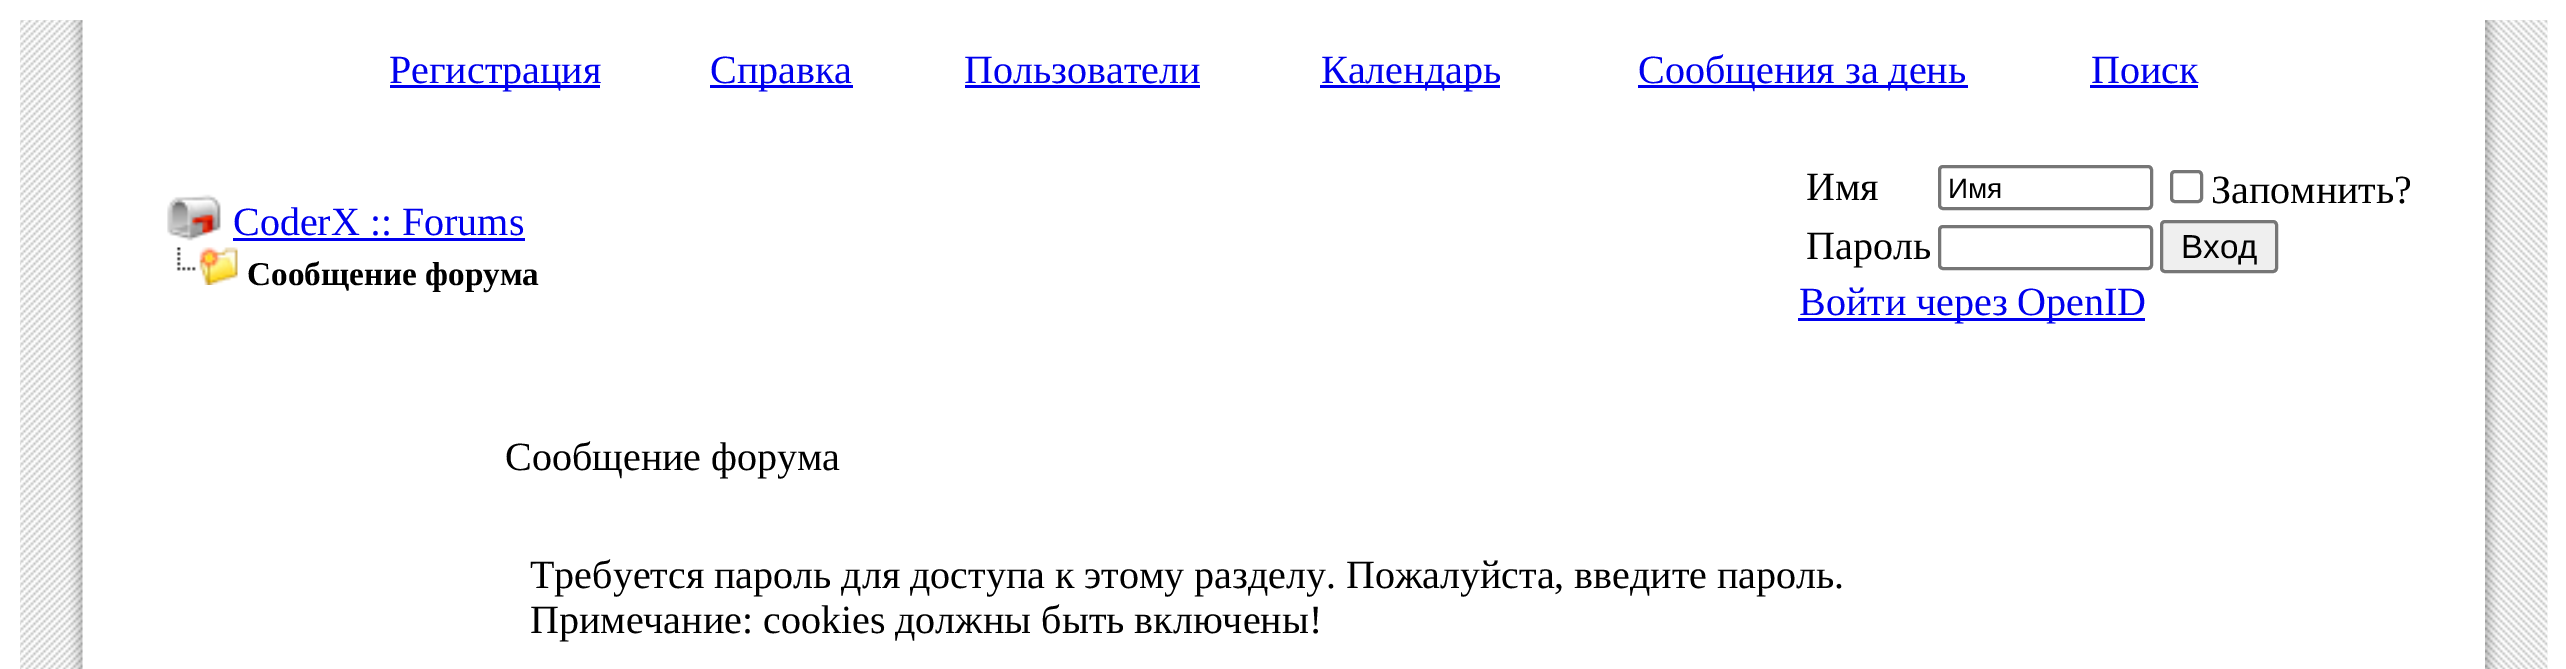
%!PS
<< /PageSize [2566 669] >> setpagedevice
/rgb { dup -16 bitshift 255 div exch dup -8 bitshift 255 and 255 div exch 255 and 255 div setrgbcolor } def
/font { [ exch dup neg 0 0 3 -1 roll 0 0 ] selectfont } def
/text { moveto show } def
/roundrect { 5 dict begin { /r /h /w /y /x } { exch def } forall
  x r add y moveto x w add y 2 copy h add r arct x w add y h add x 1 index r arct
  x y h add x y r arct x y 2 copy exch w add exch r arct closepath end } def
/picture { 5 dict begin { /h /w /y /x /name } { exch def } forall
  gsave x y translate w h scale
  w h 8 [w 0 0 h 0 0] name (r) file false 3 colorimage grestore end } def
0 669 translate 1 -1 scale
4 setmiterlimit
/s1 { /LiberationSerif-Regular 40 font 16#0000EE rgb } def
/s2 { /LiberationSerif-Bold 33.25 font 16#000000 rgb } def
/s3 { /LiberationSerif-Regular 40 font 16#000000 rgb } def
/s4 { /LiberationSans-Regular 28 font 16#000000 rgb } def
/s5 { /LiberationSans-Regular 33.25 font 16#000000 rgb } def
16#FFFFFF rgb
0 0 2566 669 rectfill
(pic1.raw) 20 20 63 649 picture
16#0000EE rgb
390 85 210 3 rectfill
s1
(Регистрация) 389 83 text
710 85 143 3 rectfill
(Справка) 710 83 text
(Пользователи) 964 83 text
965 85 235 3 rectfill
1320 85 180 3 rectfill
(Календарь) 1321 83 text
1638 85 330 3 rectfill
(Сообщения за день) 1638 83 text
(Поиск) 2091 83 text
2090 85 108 3 rectfill
(pic2.raw) 167 194 54 47 picture
(CoderX :: Forums) 233 235 text
233 238 292 3 rectfill
(pic3.raw) 176 247 62 38 picture
s2
(Сообщение форума) 247 285 text
s3
(Имя) 1806 200 text
16#767676 rgb
3 setlinewidth
1939.5 166.5 212 42 3.5 roundrect stroke
s4
(Имя) 1948 198 text
16#767676 rgb
2171.5 171.5 30 30 3.5 roundrect stroke
s3
(Запомнить?) 2211 203 text
(Пароль) 1806 259 text
16#767676 rgb
1939.5 226.5 212 42 3.5 roundrect stroke
16#EFEFEF rgb
2161.5 221.5 115 50 3.5 roundrect gsave fill grestore
16#767676 rgb
stroke
s5
(Вход) 2181 258 text
16#0000EE rgb
1798 318 347 3 rectfill
s1
(Войти через OpenID) 1799 315 text
s3
(Сообщение форума) 505 470 text
(Требуется пароль для доступа к этому разделу. Пожалуйста, введите пароль.) 530 588 text
(Примечание: cookies должны быть включены!) 530 633 text
(pic4.raw) 2485 20 63 649 picture
showpage
